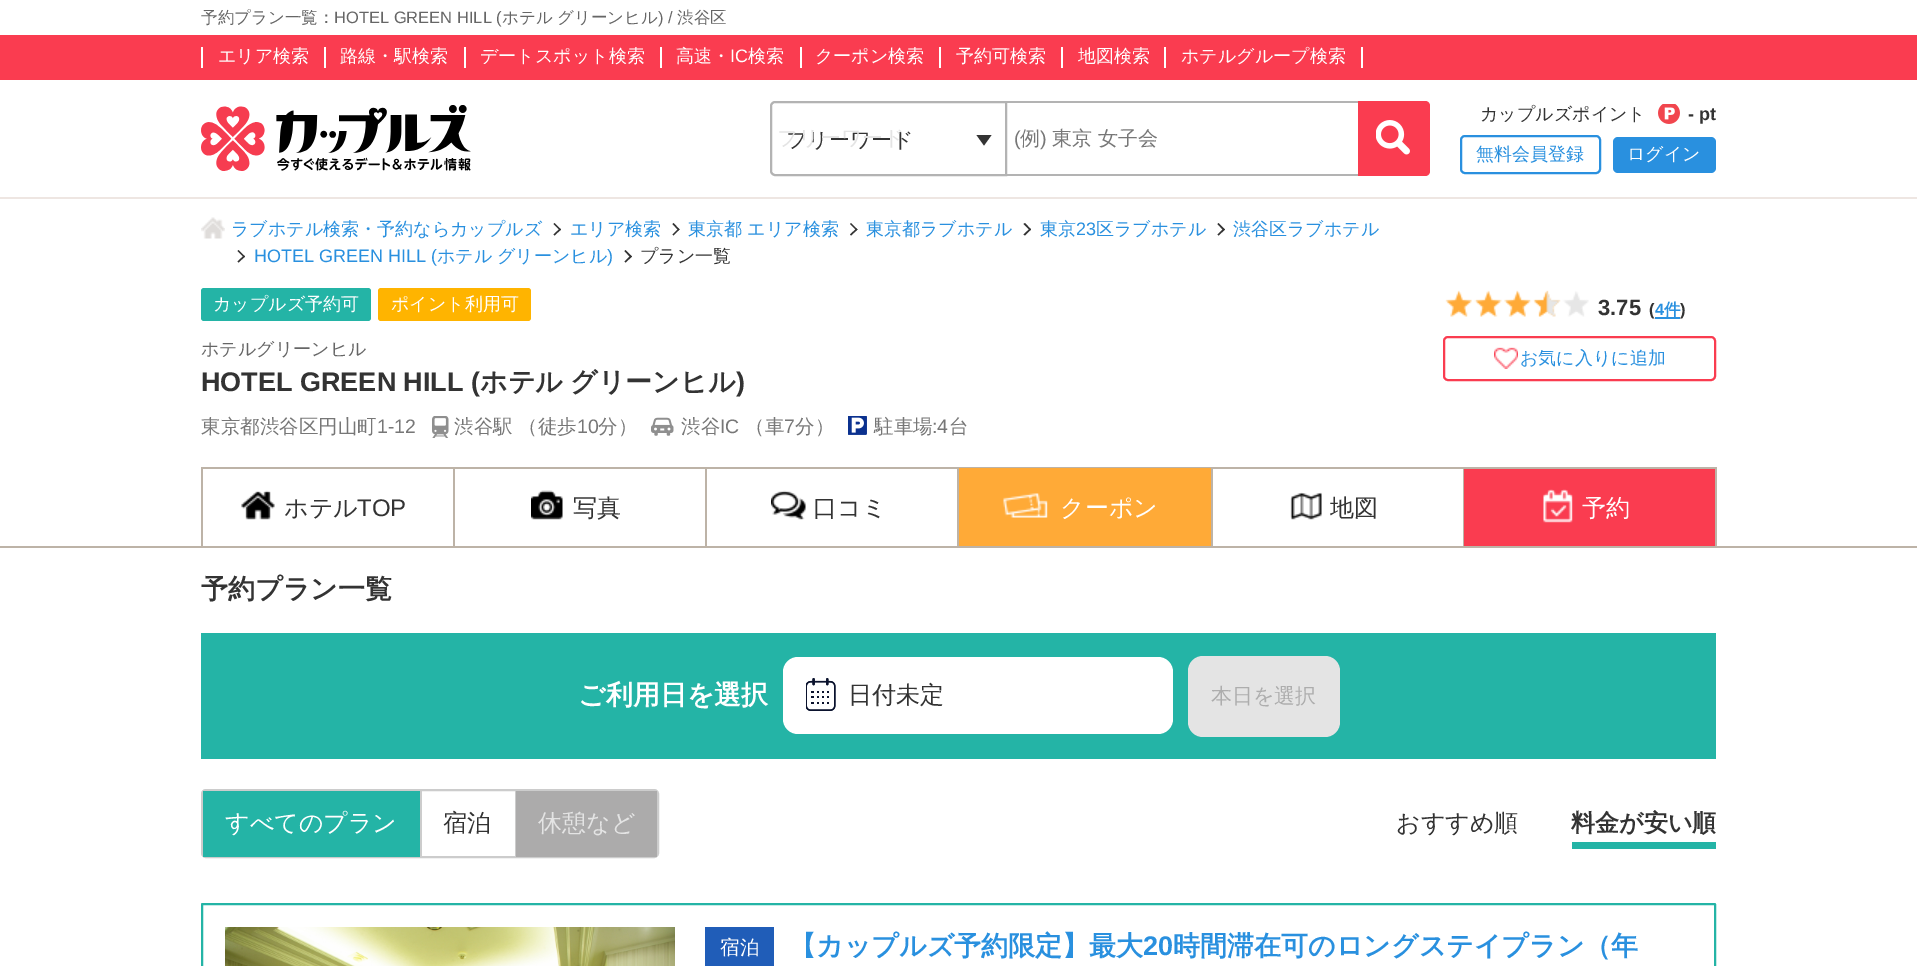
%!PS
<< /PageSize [1917 966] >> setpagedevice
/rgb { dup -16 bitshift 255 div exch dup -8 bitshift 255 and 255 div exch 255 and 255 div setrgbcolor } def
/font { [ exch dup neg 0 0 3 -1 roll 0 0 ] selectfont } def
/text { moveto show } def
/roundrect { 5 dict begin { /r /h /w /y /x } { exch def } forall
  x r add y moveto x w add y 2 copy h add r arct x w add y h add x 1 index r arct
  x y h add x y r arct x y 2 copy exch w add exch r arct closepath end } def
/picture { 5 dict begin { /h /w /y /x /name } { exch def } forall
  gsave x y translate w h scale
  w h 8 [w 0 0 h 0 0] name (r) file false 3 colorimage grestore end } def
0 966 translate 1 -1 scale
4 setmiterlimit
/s1 { /WenQuanYiZenHei-Medium 16.5 font 16#666666 rgb } def
/s2 { /LiberationSans-Regular 16.5 font 16#666666 rgb } def
/s3 { /WenQuanYiZenHei-Medium 18 font 16#FFFFFF rgb } def
/s4 { /LiberationSans-Regular 18 font 16#FFFFFF rgb } def
/s5 { /WenQuanYiZenHei-Medium 21 font 16#333333 rgb } def
/s6 { /WenQuanYiZenHei-Medium 21 font 16#E4E4E4 rgb } def
/s7 { /LiberationSans-Regular 20 font 16#777777 rgb } def
/s8 { /WenQuanYiZenHei-Medium 20 font 16#777777 rgb } def
/s9 { /WenQuanYiZenHei-Medium 18 font 16#333333 rgb } def
/s10 { /LiberationSans-Bold 18 font 16#333333 rgb } def
/s11 { /WenQuanYiZenHei-Medium 18 font 16#2990DF rgb } def
/s12 { /LiberationSans-Regular 18 font 16#2990DF rgb } def
/s13 { /WenQuanYiZenHei-Medium 18 font 16#666666 rgb } def
/s14 { /LiberationSans-Bold 27 font 16#333333 rgb } def
/s15 { /WenQuanYiZenHei-Bold 27 font 16#333333 rgb } def
/s16 { /WenQuanYiZenHei-Medium 19.5 font 16#777777 rgb } def
/s17 { /LiberationSans-Regular 19.5 font 16#777777 rgb } def
/s18 { /LiberationSans-Bold 22 font 16#333333 rgb } def
/s19 { /LiberationSans-Bold 16.5 font 16#333333 rgb } def
/s20 { /LiberationSans-Bold 16.5 font 16#2990DF rgb } def
/s21 { /WenQuanYiZenHei-Bold 16.5 font 16#2990DF rgb } def
/s22 { /WenQuanYiZenHei-Medium 24 font 16#333333 rgb } def
/s23 { /LiberationSans-Regular 24 font 16#333333 rgb } def
/s24 { /WenQuanYiZenHei-Medium 24 font 16#FFFFFF rgb } def
/s25 { /WenQuanYiZenHei-Bold 27 font 16#FFFFFF rgb } def
/s26 { /WenQuanYiZenHei-Medium 21 font 16#ADADAD rgb } def
/s27 { /WenQuanYiZenHei-Medium 24 font 16#E4E4E4 rgb } def
/s28 { /WenQuanYiZenHei-Bold 24 font 16#333333 rgb } def
/s29 { /WenQuanYiZenHei-Medium 19.5 font 16#FFFFFF rgb } def
/s30 { /WenQuanYiZenHei-Bold 27 font 16#2990DF rgb } def
/s31 { /LiberationSans-Bold 27 font 16#2990DF rgb } def
16#FFFFFF rgb
0 0 1917 966 rectfill
s1
(予約プラン一覧：) 201 23 text
s2
(HOTEL GREEN HILL \() 334 23 text
s1
(ホテル) 502 23 text
(グリーンヒル) 557 23 text
s2
(\) /) 658 23 text
s1
(渋谷区) 677 23 text
16#FA3C50 rgb
0 35 1917 45 rectfill
16#FFFFFF rgb
201 47 2 21 rectfill
324 47 2 21 rectfill
s3
(エリア検索) 218 62 text
464 47 2 21 rectfill
(路線・駅検索) 340 62 text
660 47 2 21 rectfill
(デートスポット検索) 480 62 text
800 47 2 21 rectfill
(高速・) 676 62 text
s4
(IC) 730 62 text
s3
(検索) 748 62 text
939 47 2 21 rectfill
(クーポン検索) 815 62 text
1061 47 2 21 rectfill
(予約可検索) 956 62 text
1164 47 2 21 rectfill
(地図検索) 1078 62 text
1361 47 2 21 rectfill
(ホテルグループ検索) 1181 62 text
16#EEE6E2 rgb
0 197 1917 2 rectfill
(pic1.raw) 201 105 270 66 picture
16#B3B3B3 rgb
2 setlinewidth
775 102 moveto 1006 102 lineto 1006 175 lineto 775 175 lineto 773 175 771 173 771 171 curveto 771 106 lineto 771 104 773 102 775 102 curveto closepath stroke
s5
(フリーワード) 786 147 text
s6
(フリーワード) 777 145 text
16#333333 rgb
976.5 135 moveto 991.5 135 lineto 984 145.5 lineto closepath fill
16#B3B3B3 rgb
1007 101 351 2 rectfill
1007 174 351 2 rectfill
s7
(\() 1014 145 text
s8
(例) 1020 145 text
s7
(\)) 1040 145 text
s8
(東京 女子会) 1052 145 text
16#FA3C50 rgb
1358 101 moveto 1425 101 lineto 1428 101 1430 103 1430 106 curveto 1430 171 lineto 1430 174 1428 176 1425 176 curveto 1358 176 lineto closepath fill
(pic2.raw) 1376 120 34 35 picture
s9
(カップルズポイント) 1480 120 text
(pic3.raw) 1658 104 22 20 picture
s10
(- pt) 1688 120 text
16#2990DF rgb
1461 136 139 37 4 roundrect stroke
s11
(無料会員登録) 1476 160 text
1613 137 103 36 5 roundrect fill
s3
(ログイン) 1627 160 text
(pic4.raw) 201 217 24 22 picture
s11
(ラブホテル検索・予約ならカップルズ) 231 235 text
16#333333 rgb
554.5 223 moveto 561 229.5 lineto 560 230.5 lineto 553.5 224 lineto closepath fill
560 228.5 moveto 561 229.5 lineto 554.5 235.5 lineto 553.5 234.5 lineto closepath fill
s11
(エリア検索) 570 235 text
16#333333 rgb
673.5 223 moveto 679.5 229.5 lineto 678.5 230.5 lineto 672.5 224 lineto closepath fill
678.5 228.5 moveto 679.5 229.5 lineto 673.5 235.5 lineto 672.5 234.5 lineto closepath fill
s11
(東京都 エリア検索) 688 235 text
16#333333 rgb
851 223 moveto 857.5 229.5 lineto 856.5 230.5 lineto 850 224 lineto closepath fill
856.5 228.5 moveto 857.5 229.5 lineto 851 235.5 lineto 850 234.5 lineto closepath fill
s11
(東京都ラブホテル) 866 235 text
16#333333 rgb
1025 223 moveto 1031 229.5 lineto 1030 230.5 lineto 1023.5 224 lineto closepath fill
1030 228.5 moveto 1031 229.5 lineto 1025 235.5 lineto 1023.5 234.5 lineto closepath fill
s11
(東京) 1040 235 text
s12
(23) 1076 235 text
s11
(区ラブホテル) 1096 235 text
16#333333 rgb
1218.5 223 moveto 1225 229.5 lineto 1223.5 230.5 lineto 1217.5 224 lineto closepath fill
1223.5 228.5 moveto 1225 229.5 lineto 1218.5 235.5 lineto 1217.5 234.5 lineto closepath fill
s11
(渋谷区ラブホテル) 1233 235 text
16#333333 rgb
238.5 250 moveto 245 256.5 lineto 244 257.5 lineto 237.5 251 lineto closepath fill
244 255.5 moveto 245 256.5 lineto 238.5 262.5 lineto 237.5 261.5 lineto closepath fill
s12
(HOTEL GREEN HILL \() 254 262 text
s11
(ホテル) 437 262 text
(グリーンヒル) 497 262 text
s12
(\)) 607 262 text
16#333333 rgb
625.5 250 moveto 632 256.5 lineto 630.5 257.5 lineto 624.5 251 lineto closepath fill
630.5 255.5 moveto 632 256.5 lineto 625.5 262.5 lineto 624.5 261.5 lineto closepath fill
s9
(プラン一覧) 640 262 text
16#24B4A6 rgb
201 288 170 33 3 roundrect fill
s3
(カップルズ予約可) 213 310 text
16#FFB400 rgb
378 288 153 33 3 roundrect fill
s3
(ポイント利用可) 391 310 text
s13
(ホテルグリーンヒル) 201 355 text
s14
(HOTEL GREEN HILL \() 201 391 text
s15
(ホテル) 480 391 text
(グリーンヒル) 570 391 text
s14
(\)) 736 391 text
s16
(東京都渋谷区円山町) 201 433 text
s17
(1-12) 377 433 text
(pic5.raw) 432 416 17 22 picture
s16
(渋谷駅) 454 433 text
(（徒歩) 518 433 text
s17
(10) 577 433 text
s16
(分）) 598 433 text
(pic6.raw) 651 417 23 19 picture
(渋谷) 681 433 text
s17
(IC) 720 433 text
s16
(（車) 745 433 text
s17
(7) 784 433 text
s16
(分）) 795 433 text
(pic7.raw) 848 416 19 19 picture
(駐車場) 874 433 text
s17
(:4) 932 433 text
s16
(台) 949 433 text
(pic8.raw) 1445 290 144 27 picture
s18
(3.75) 1598 315 text
s19
(\() 1649 315 text
16#2990DF rgb
1655 317 25 2 rectfill
(4) 1655 315 text
s21
(件) 1664 315 text
s19
(\)) 1680 315 text
16#FA3C50 rgb
1444 337 271 43 4 roundrect stroke
(pic9.raw) 1494 347 24 22 picture
s11
(お気に入りに追加) 1520 364 text
16#BDB3A7 rgb
0 546 1917 2 rectfill
201 467 2 79 rectfill
203 467 756 2 rectfill
453 467 2 79 rectfill
(pic10.raw) 241 490 34 30 picture
s22
(ホテル) 284 516 text
s23
(TOP) 357 516 text
16#BDB3A7 rgb
705 467 2 79 rectfill
(pic11.raw) 531 490 32 30 picture
s22
(写真) 573 516 text
16#BDB3A7 rgb
957 467 2 79 rectfill
(pic12.raw) 771 490 35 30 picture
s22
(口コミ) 813 516 text
16#BDB3A7 rgb
959 467 253 1 rectfill
1211 467 2 79 rectfill
16#FFAA37 rgb
959 468 252 78 rectfill
(pic13.raw) 1003 493 45 25 picture
s24
(クーポン) 1060 516 text
16#BDB3A7 rgb
1212 467 504 2 rectfill
1463 467 1 79 rectfill
(pic14.raw) 1290 492 32 28 picture
s22
(地図) 1330 516 text
16#FA3C50 rgb
1464 469 251 77 rectfill
16#BDB3A7 rgb
1715 467 2 79 rectfill
(pic15.raw) 1543 489 30 34 picture
s24
(予約) 1582 516 text
s15
(予約プラン一覧) 201 598 text
16#24B4A6 rgb
201 633 1515 126 rectfill
s25
(ご利用日を選択) 578 704 text
783 657 390 77 15 roundrect fill
(pic16.raw) 806 678 30 33 picture
s22
(日付未定) 848 703 text
16#E4E4E4 rgb
1188 656 152 81 15 roundrect fill
s26
(本日を選択) 1211 703 text
16#CCCCCC rgb
202 790 456 67 4 roundrect stroke
16#24B4A6 rgb
203 791 217 66 rectfill
16#CCCCCC rgb
420 791 2 66 rectfill
s24
(すべてのプラン) 225 831 text
16#CCCCCC rgb
515 791 1 66 rectfill
s22
(宿泊) 443 831 text
16#ACABAB rgb
516 791 141 66 rectfill
s27
(休憩など) 538 831 text
s22
(おすすめ順) 1396 831 text
s28
(料金が安い順) 1571 831 text
16#24B4A6 rgb
1572 842 144 7 rectfill
202 904 1513 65 0.5 roundrect stroke
(pic17.raw) 225 927 450 39 picture
16#205DB8 rgb
705 927 69 39 rectfill
s29
(宿泊) 720 954 text
s30
(【カップルズ予約限定】最大) 789 955 text
s31
(20) 1143 955 text
s30
(時間滞在可のロングステイプラン（年) 1173 955 text
showpage
